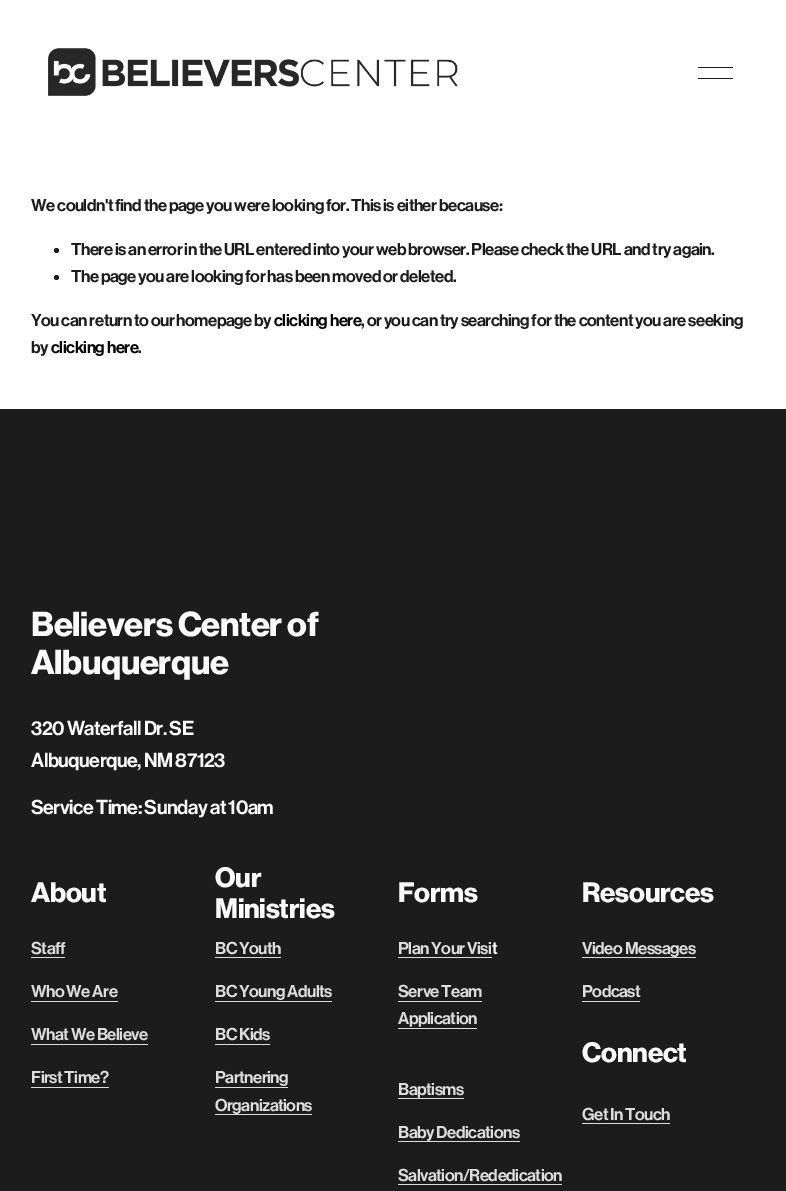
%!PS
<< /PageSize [786 1191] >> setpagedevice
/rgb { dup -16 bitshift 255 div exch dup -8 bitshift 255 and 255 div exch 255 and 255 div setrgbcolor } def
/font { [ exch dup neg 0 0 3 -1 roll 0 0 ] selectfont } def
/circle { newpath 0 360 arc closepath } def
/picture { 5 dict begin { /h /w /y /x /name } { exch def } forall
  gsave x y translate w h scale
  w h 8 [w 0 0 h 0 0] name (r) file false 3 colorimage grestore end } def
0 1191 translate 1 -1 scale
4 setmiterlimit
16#FFFFFF rgb
0 0 786 1191 rectfill
(pic1.raw) 48 48 410 48 picture
16#1C1C1C rgb
698 67 35 1 rectfill
698 78 35 1 rectfill
/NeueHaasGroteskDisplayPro-Medium 16.95 font
31 211 moveto -0.5 0 (We couldn't find the page you were looking for. This is either because:) ashow
56.5 250.5 2.5 circle fill
71 255 moveto -0.5 0 (There is an error in the URL entered into your web browser. Please check the URL and try again.) ashow
56.5 277.5 2.5 circle fill
71 282 moveto -0.5 0 (The page you are looking for has been moved or deleted.) ashow
31 326 moveto -0.5 0 (You can return to our homepage by) ashow
16#000000 rgb
274 326 moveto -0.5 0 (clicking here) ashow
16#1C1C1C rgb
361 326 moveto -0.5 0 (, or you can try searching for the content you are seeking) ashow
31 353 moveto -0.5 0 (by) ashow
16#000000 rgb
51 353 moveto -0.5 0 (clicking here) ashow
16#1C1C1C rgb
138 353 moveto -0.5 0 (.) ashow
0 409 786 782 rectfill
/NeueHaasGroteskDisplayPro-Bold 34 font
16#FAFAFA rgb
31 636 moveto -0.3 0 (Believers Center of) ashow
31 674 moveto -0.3 0 (Albuquerque) ashow
/NeueHaasGroteskDisplayPro-Medium 19.75 font
31 735 moveto -0.5 0 (320 Waterfall Dr. SE) ashow
31 767 moveto -0.5 0 (Albuquerque, NM 87123) ashow
31 814 moveto -0.5 0 (Service Time: Sunday at 10am) ashow
/NeueHaasGroteskDisplayPro-Bold 27.5 font
31 902 moveto -0.25 0 (About) ashow
215 887 moveto -0.25 0 (Our) ashow
215 918 moveto -0.25 0 (Ministries) ashow
398 902 moveto -0.25 0 (Forms) ashow
582 902 moveto -0.25 0 (Resources) ashow
/NeueHaasGroteskDisplayPro-Medium 16.95 font
16#DCDCDC rgb
31 954 moveto -0.5 0 (Staff) ashow
31 957 34 1 rectfill
31 997 moveto -0.5 0 (Who We Are) ashow
31 1001 87 1 rectfill
31 1040 moveto -0.5 0 (What We Believe) ashow
31 1044 117 1 rectfill
31 1083 moveto -0.5 0 (First Time?) ashow
31 1087 78 1 rectfill
215 954 moveto -0.5 0 (BC Youth) ashow
215 957 66 1 rectfill
215 997 moveto -0.5 0 (BC Young Adults) ashow
215 1001 117 1 rectfill
215 1040 moveto -0.5 0 (BC Kids) ashow
215 1044 55 1 rectfill
215 1083 moveto -0.5 0 (Partnering) ashow
215 1087 73 1 rectfill
215 1111 moveto -0.5 0 (Organizations) ashow
215 1114 97 1 rectfill
398 954 moveto -0.5 0 (Plan Your Visi) ashow
398 957 94 1 rectfill
16#FAFAFA rgb
492 954 moveto -0.5 0 (t) ashow
16#DCDCDC rgb
398 997 moveto -0.5 0 (Serve Team) ashow
398 1001 84 1 rectfill
398 1024 moveto -0.5 0 (Application) ashow
398 1028 79 1 rectfill
398 1095 moveto -0.5 0 (Baptisms) ashow
398 1098 66 1 rectfill
398 1138 moveto -0.5 0 (Baby Dedications) ashow
398 1141 122 1 rectfill
398 1181 moveto -0.5 0 (Salvation/Rededication) ashow
398 1184 164 1 rectfill
582 954 moveto -0.5 0 (Video Messages) ashow
582 957 114 1 rectfill
582 997 moveto -0.5 0 (Podcast) ashow
582 1001 58 1 rectfill
/NeueHaasGroteskDisplayPro-Bold 27.5 font
16#FAFAFA rgb
582 1062 moveto -0.25 0 (Connect) ashow
/NeueHaasGroteskDisplayPro-Medium 16.95 font
16#DCDCDC rgb
582 1120 moveto -0.5 0 (Get In Touch) ashow
582 1123 88 1 rectfill
showpage
